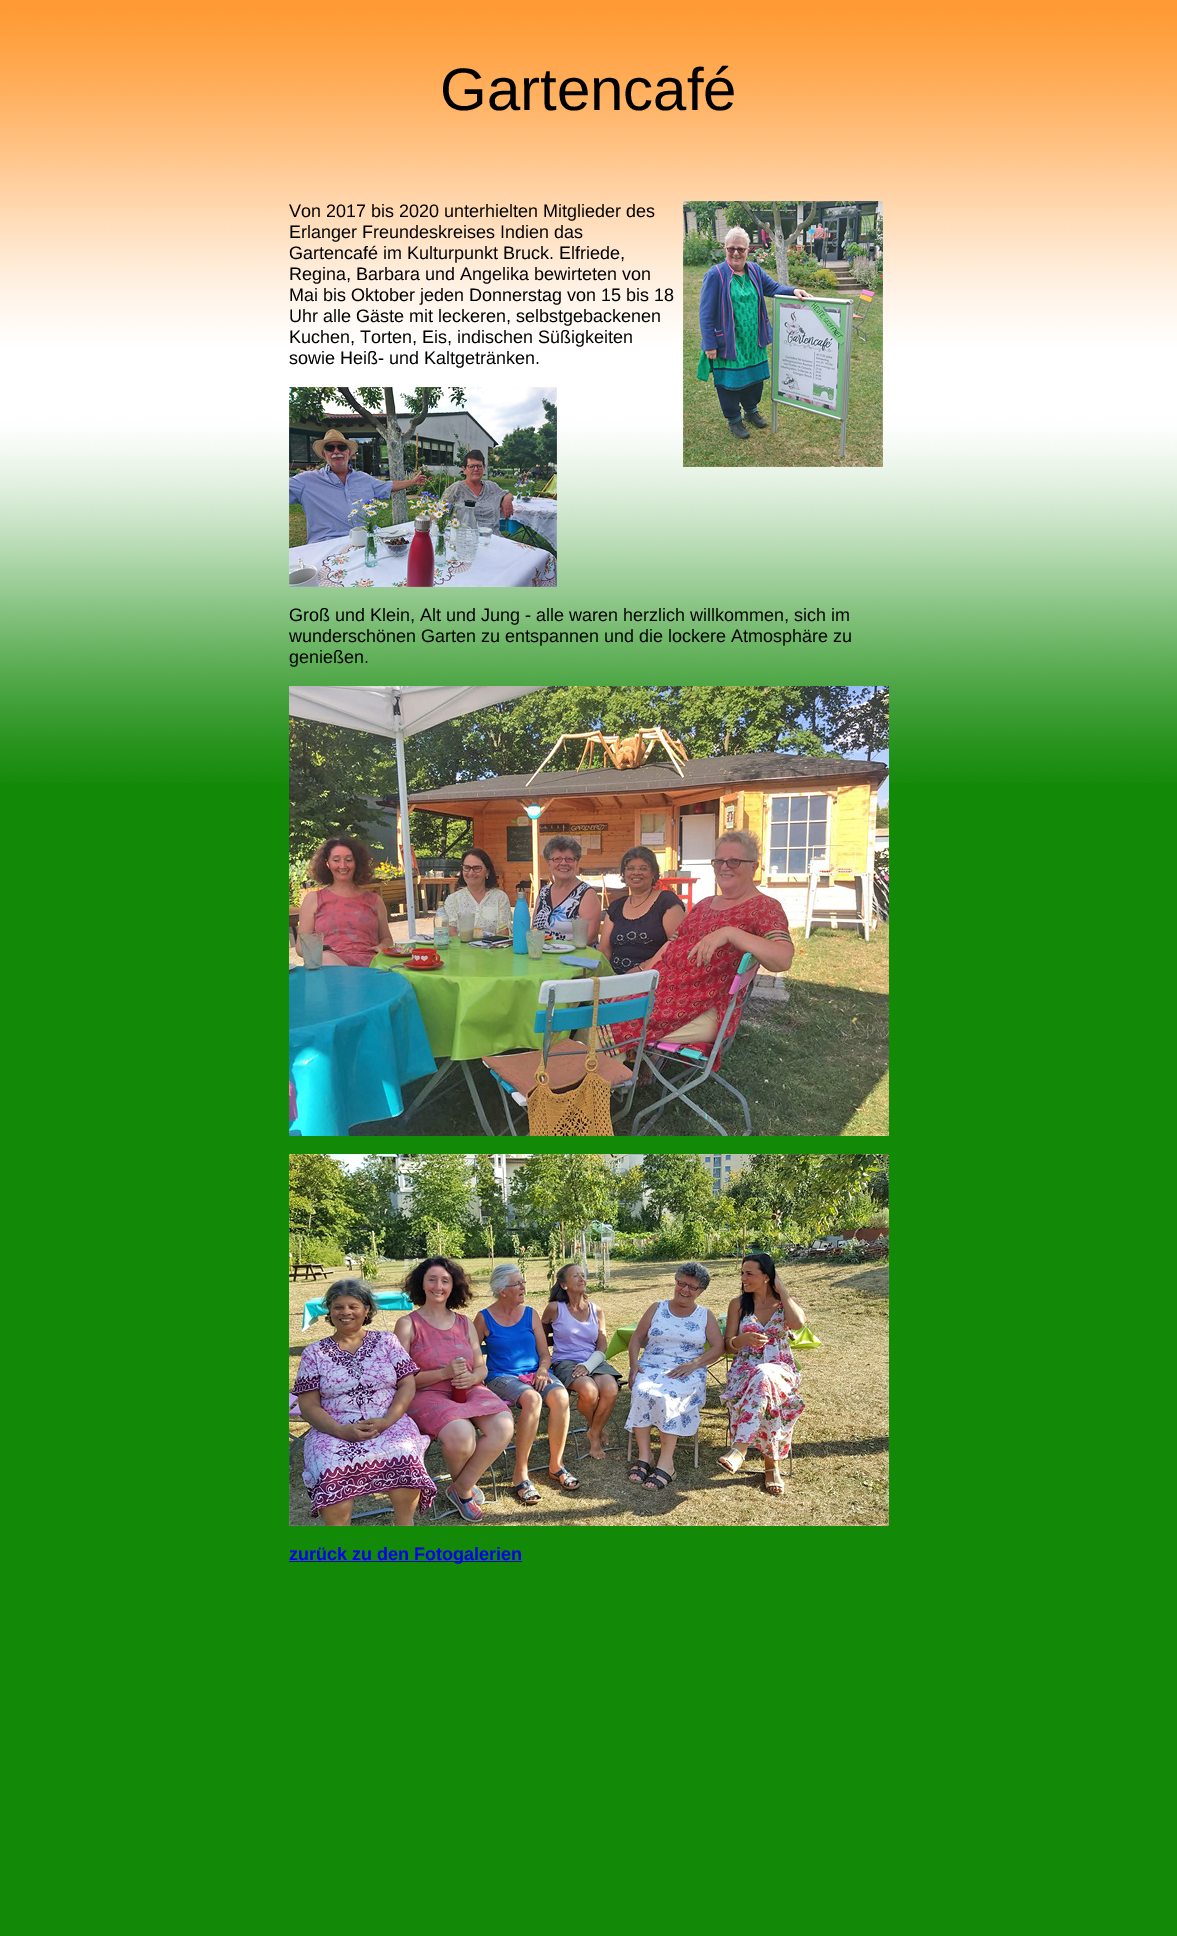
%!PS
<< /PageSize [1177 1936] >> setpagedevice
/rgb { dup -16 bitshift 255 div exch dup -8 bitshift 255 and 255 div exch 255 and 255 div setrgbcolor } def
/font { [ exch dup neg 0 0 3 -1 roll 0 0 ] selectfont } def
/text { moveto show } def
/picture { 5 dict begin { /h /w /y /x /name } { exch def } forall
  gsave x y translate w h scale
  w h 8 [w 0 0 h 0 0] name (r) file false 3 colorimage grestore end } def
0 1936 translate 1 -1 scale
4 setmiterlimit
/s1 { /LiberationSans-Regular 60 font 16#000000 rgb } def
/s2 { /LiberationSans-Regular 18 font 16#000000 rgb } def
/s3 { /LiberationSans-Bold 18 font 16#0000EE rgb } def
16#138908 rgb
0 0 1177 1936 rectfill
(pic1.raw) 0 0 1177 783 picture
s1
(Gartencafé) 440 110 text
s2
(Von 2017 bis 2020 unterhielten Mitglieder des) 289 217 text
(Erlanger Freundeskreises Indien das) 289 238 text
(Gartencafé im Kulturpunkt Bruck. Elfriede,) 289 259 text
(Regina, Barbara und Angelika bewirteten von) 289 280 text
(Mai bis Oktober jeden Donnerstag von 15 bis 18) 289 301 text
(Uhr alle Gäste mit leckeren, selbstgebackenen) 289 322 text
(Kuchen, Torten, Eis, indischen Süßigkeiten) 289 343 text
(sowie Heiß- und Kaltgetränken.) 289 364 text
(pic2.raw) 683 201 200 266 picture
(pic3.raw) 289 387 268 200 picture
(Groß und Klein, Alt und Jung - alle waren herzlich willkommen, sich im) 289 621 text
(wunderschönen Garten zu entspannen und die lockere Atmosphäre zu) 289 642 text
(genießen.) 289 663 text
(pic4.raw) 289 686 600 450 picture
(pic5.raw) 289 1154 600 372 picture
16#0000EE rgb
289 1561 233 1 rectfill
s3
(zurück zu den Fotogalerien) 289 1560 text
showpage
